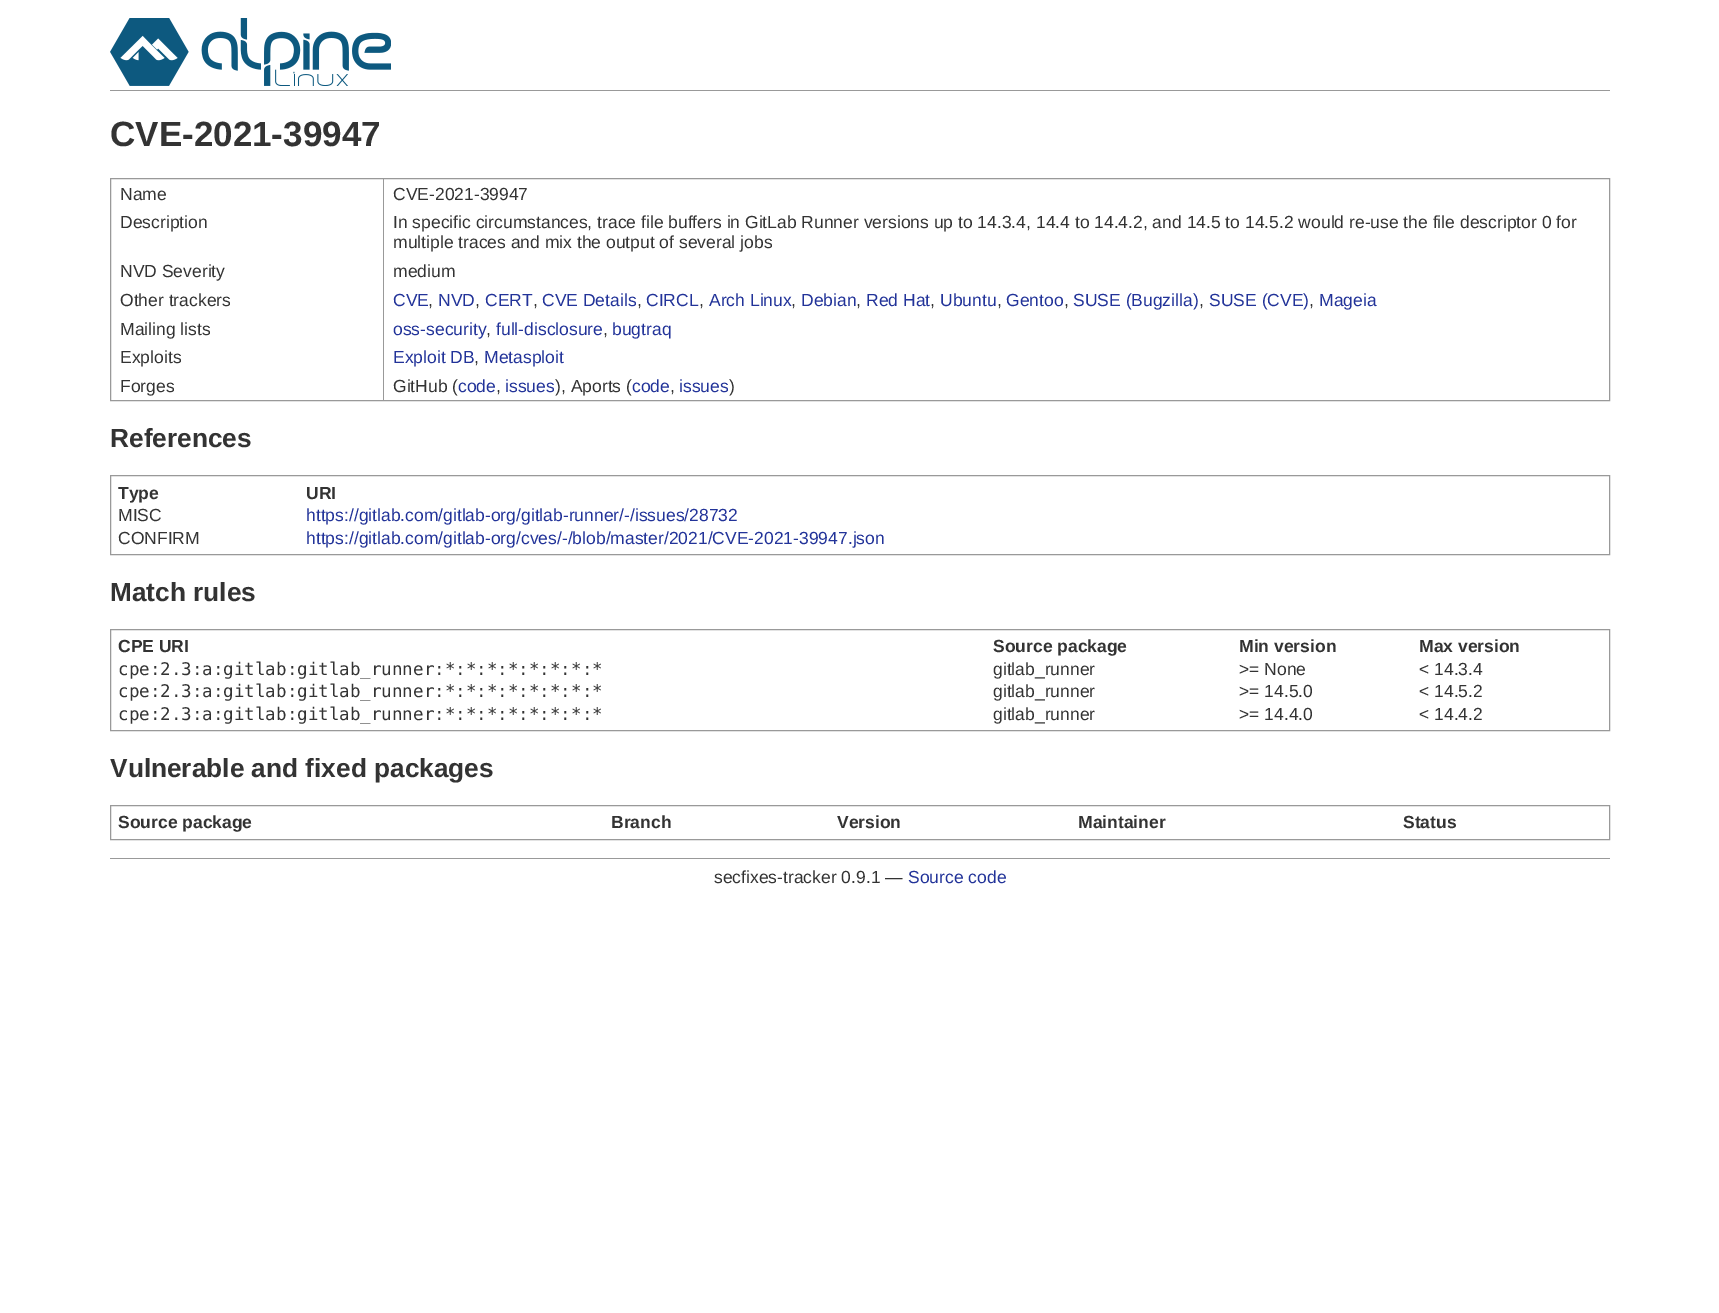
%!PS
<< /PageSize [1719 1313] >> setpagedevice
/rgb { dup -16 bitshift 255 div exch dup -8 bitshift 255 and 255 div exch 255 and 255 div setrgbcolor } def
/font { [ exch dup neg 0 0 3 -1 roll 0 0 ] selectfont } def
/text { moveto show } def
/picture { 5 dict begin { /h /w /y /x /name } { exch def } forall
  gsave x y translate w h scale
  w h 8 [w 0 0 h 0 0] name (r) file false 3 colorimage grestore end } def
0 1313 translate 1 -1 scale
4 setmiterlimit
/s1 { /LiberationSans-Bold 35 font 16#333333 rgb } def
/s2 { /LiberationSans-Regular 17.5 font 16#333333 rgb } def
/s3 { /LiberationSans-Regular 17.5 font 16#223399 rgb } def
/s4 { /LiberationSans-Bold 26.25 font 16#333333 rgb } def
/s5 { /LiberationSans-Bold 17.5 font 16#333333 rgb } def
/s6 { /DejaVuSansMono-Regular 17.5 font 16#333333 rgb } def
16#FFFFFF rgb
0 0 1719 1313 rectfill
16#999999 rgb
110 90 1500 1 rectfill
(pic1.raw) 110 18 281 68 picture
s1
(CVE-2021-39947) 110 146 text
16#999999 rgb
110.5 178.5 1499 222 rectstroke
s2
(Name) 120 200 text
16#999999 rgb
383 179 1 221 rectfill
s2
(CVE-2021-39947) 393 200 text
(Description) 120 228 text
(In specific circumstances, trace file buffers in GitLab Runner versions up to 14.3.4, 14.4 to 14.4.2, and 14.5 to 14.5.2 would re-use the file descriptor 0 for) 393 228 text
(multiple traces and mix the output of several jobs) 393 248 text
(NVD Severity) 120 277 text
(medium) 393 277 text
(Other trackers) 120 306 text
s3
(CVE) 393 306 text
s2
(,) 428 306 text
s3
(NVD) 438 306 text
s2
(,) 475 306 text
s3
(CERT) 485 306 text
s2
(,) 533 306 text
s3
(CVE Details) 542 306 text
s2
(,) 637 306 text
s3
(CIRCL) 646 306 text
s2
(,) 699 306 text
s3
(Arch Linux) 709 306 text
s2
(,) 791 306 text
s3
(Debian) 801 306 text
s2
(,) 856 306 text
s3
(Red Hat) 866 306 text
s2
(,) 930 306 text
s3
(Ubuntu) 940 306 text
s2
(,) 997 306 text
s3
(Gentoo) 1006 306 text
s2
(,) 1064 306 text
s3
(SUSE \(Bugzilla\)) 1073 306 text
s2
(,) 1199 306 text
s3
(SUSE \(CVE\)) 1209 306 text
s2
(,) 1309 306 text
s3
(Mageia) 1319 306 text
s2
(Mailing lists) 120 335 text
s3
(oss-security) 393 335 text
s2
(,) 486 335 text
s3
(full-disclosure) 496 335 text
s2
(,) 603 335 text
s3
(bugtraq) 612 335 text
s2
(Exploits) 120 363 text
s3
(Exploit DB) 393 363 text
s2
(,) 474 363 text
s3
(Metasploit) 484 363 text
s2
(Forges) 120 392 text
(GitHub \() 393 392 text
s3
(code) 458 392 text
s2
(,) 496 392 text
s3
(issues) 505 392 text
s2
(\), Aports \() 555 392 text
s3
(code) 632 392 text
s2
(,) 670 392 text
s3
(issues) 679 392 text
s2
(\)) 729 392 text
s4
(References) 110 447 text
16#999999 rgb
110.5 475.5 1499 79 rectstroke
s5
(Type) 118 499 text
(URI) 306 499 text
s2
(MISC) 118 521 text
s3
(https://gitlab.com/gitlab-org/gitlab-runner/-/issues/28732) 306 521 text
s2
(CONFIRM) 118 544 text
s3
(https://gitlab.com/gitlab-org/cves/-/blob/master/2021/CVE-2021-39947.json) 306 544 text
s4
(Match rules) 110 601 text
16#999999 rgb
110.5 629.5 1499 101 rectstroke
s5
(CPE URI) 118 652 text
(Source package) 993 652 text
(Min version) 1239 652 text
(Max version) 1419 652 text
s6
(cpe:2.3:a:gitlab:gitlab_runner:*:*:*:*:*:*:*:*) 118 675 text
s2
(gitlab_runner) 993 675 text
(>= None) 1239 675 text
(< 14.3.4) 1419 675 text
s6
(cpe:2.3:a:gitlab:gitlab_runner:*:*:*:*:*:*:*:*) 118 697 text
s2
(gitlab_runner) 993 697 text
(>= 14.5.0) 1239 697 text
(< 14.5.2) 1419 697 text
s6
(cpe:2.3:a:gitlab:gitlab_runner:*:*:*:*:*:*:*:*) 118 720 text
s2
(gitlab_runner) 993 720 text
(>= 14.4.0) 1239 720 text
(< 14.4.2) 1419 720 text
s4
(Vulnerable and fixed packages) 110 777 text
16#999999 rgb
110.5 805.5 1499 34 rectstroke
s5
(Source package) 118 828 text
(Branch) 611 828 text
(Version) 837 828 text
(Maintainer) 1078 828 text
(Status) 1403 828 text
16#999999 rgb
110 858 1500 1 rectfill
s2
(secfixes-tracker 0.9.1 —) 714 883 text
s3
(Source code) 908 883 text
showpage
